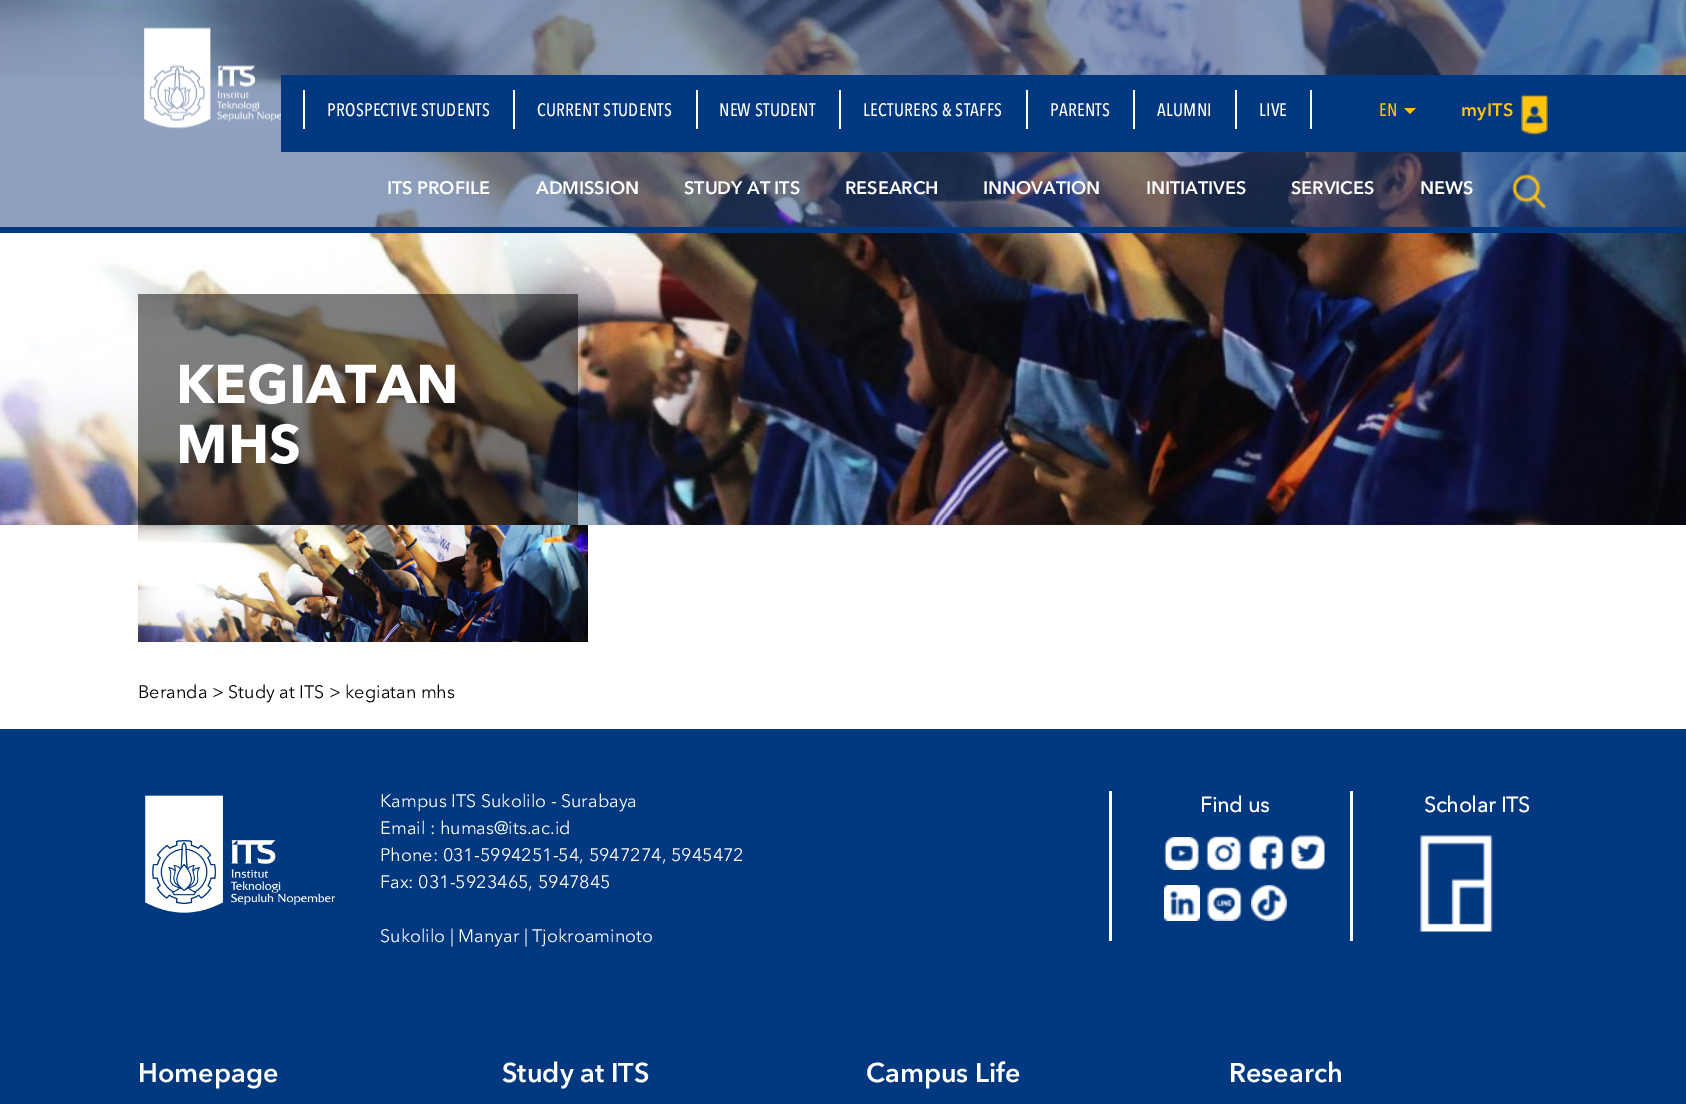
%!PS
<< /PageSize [1686 1104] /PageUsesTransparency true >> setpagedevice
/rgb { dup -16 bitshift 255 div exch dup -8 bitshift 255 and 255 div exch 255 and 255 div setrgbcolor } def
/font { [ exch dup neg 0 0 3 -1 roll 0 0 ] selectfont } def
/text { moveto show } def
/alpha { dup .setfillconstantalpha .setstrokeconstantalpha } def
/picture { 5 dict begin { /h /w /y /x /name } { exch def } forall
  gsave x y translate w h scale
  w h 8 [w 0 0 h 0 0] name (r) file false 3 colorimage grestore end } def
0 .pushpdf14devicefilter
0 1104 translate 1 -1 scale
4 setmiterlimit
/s1 { /AvenirNext-SemiBold 18 font 16#FFFFFF rgb } def
/s2 { /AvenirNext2-Bold 54 font 16#FFFFFF rgb } def
/s3 { /AvenirNext-Regular 18 font 16#000000 rgb } def
/s4 { /AvenirNext-Regular 18 font 16#FFFFFF rgb } def
/s5 { /AvenirNext-Bold 21 font 16#FFFFFF rgb } def
/s6 { /AvenirNext-SemiBold 27 font 16#FFFFFF rgb } def
16#FFFFFF rgb
0 0 1686 1104 rectfill
(pic4.raw) 0 0 1686 525 picture
0.5 alpha
16#20417F rgb
0 0 1686 227 rectfill
1 alpha
16#013880 rgb
0 227 1686 6 rectfill
(pic1.raw) 144 27 137 102 picture
281 75 1405 77 rectfill
16#FFFFFF rgb
513 90 2 39 rectfill
303 90 2 39 rectfill
/AvenirNext-Medium 18 font
327 116 moveto 0.25 0 (PROSPECTIVE STUDENTS) ashow
696 90 2 39 rectfill
537 116 moveto 0.25 0 (CURRENT STUDENTS) ashow
839 90 2 39 rectfill
719 116 moveto 0.25 0 (NEW STUDENT) ashow
1026 90 2 39 rectfill
863 116 moveto 0.25 0 (LECTURERS & STAFFS) ashow
1133 90 2 39 rectfill
1050 116 moveto 0.25 0 (PARENTS) ashow
1235 90 2 39 rectfill
1157 116 moveto 0.25 0 (ALUMNI) ashow
1310 90 2 39 rectfill
1259 116 moveto 0.25 0 (LIVE) ashow
16#FFC410 rgb
1379 116 moveto 0.25 0 (EN) ashow
1404 108 moveto 1416 108 lineto 1410 114 lineto closepath fill
/AvenirNext-SemiBold 18 font
1461 116 moveto 0.25 0 (myITS) ashow
(pic2.raw) 1521 95 27 40 picture
s1
(ITS PROFILE) 387 194 text
(ADMISSION) 536 194 text
(STUDY AT ITS) 684 194 text
(RESEARCH) 845 194 text
(INNOVATION) 983 194 text
(INITIATIVES) 1146 194 text
(SERVICES) 1291 194 text
(NEWS) 1420 194 text
(pic3.raw) 1512 173 35 37 picture
0.5 alpha
16#000000 rgb
138 294 440 231 rectfill
1 alpha
s2
(KEGIATAN) 176 403 text
(MHS) 176 463 text
(pic5.raw) 138 525 450 117 picture
s3
(Beranda > Study at ITS > kegiatan mhs) 138 698 text
16#013880 rgb
0 729 1686 375 rectfill
(pic6.raw) 145 795 190 118 picture
s4
(Kampus ITS Sukolilo - Surabaya) 380 807 text
(Email : humas@its.ac.id) 380 834 text
(Phone: 031-5994251-54, 5947274, 5945472) 380 861 text
(Fax: 031-5923465, 5947845) 380 888 text
(Sukolilo | Manyar | Tjokroaminoto) 380 942 text
1109 791 3 150 rectfill
s5
(Find us) 1200 812 text
(pic7.raw) 1164 837 35 33 picture
(pic8.raw) 1206 835 35 35 picture
(pic9.raw) 1249 835 35 35 picture
(pic10.raw) 1291 835 34 35 picture
(pic11.raw) 1164 885 36 36 picture
(pic12.raw) 1207 886 35 35 picture
(pic13.raw) 1251 885 36 36 picture
1350 791 3 150 rectfill
(Scholar ITS) 1424 812 text
(pic14.raw) 1420 835 73 97 picture
s6
(Homepage) 138 1082 text
(Study at ITS) 502 1082 text
(Campus Life) 866 1082 text
(Research) 1229 1082 text
.poppdf14devicefilter showpage
